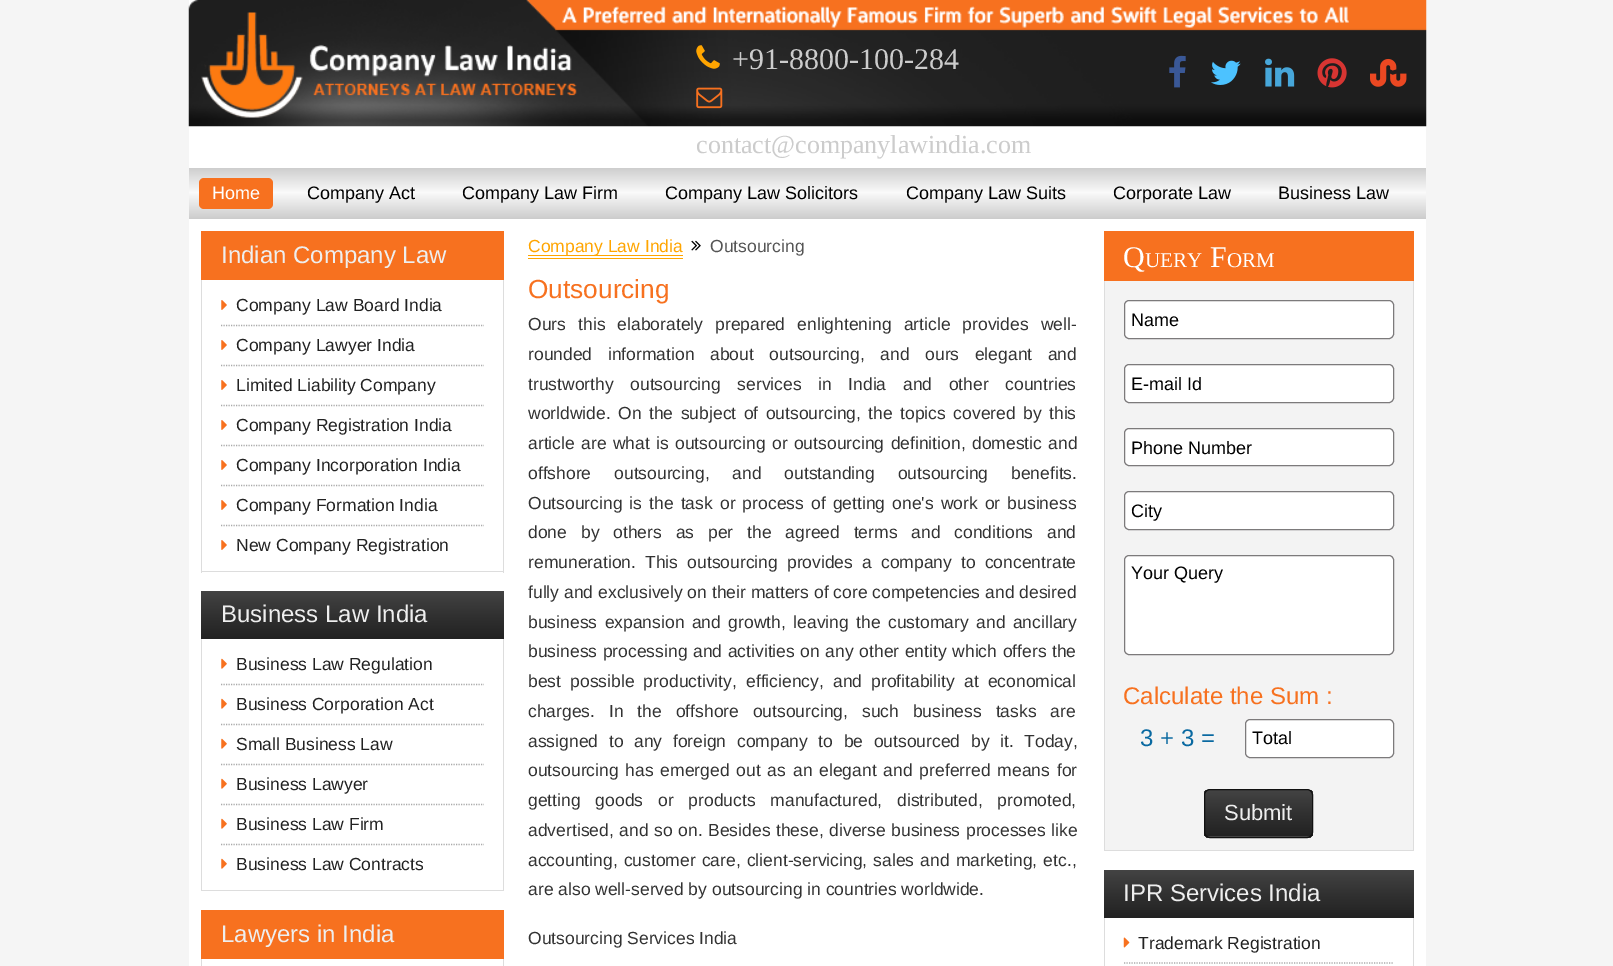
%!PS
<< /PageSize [1613 966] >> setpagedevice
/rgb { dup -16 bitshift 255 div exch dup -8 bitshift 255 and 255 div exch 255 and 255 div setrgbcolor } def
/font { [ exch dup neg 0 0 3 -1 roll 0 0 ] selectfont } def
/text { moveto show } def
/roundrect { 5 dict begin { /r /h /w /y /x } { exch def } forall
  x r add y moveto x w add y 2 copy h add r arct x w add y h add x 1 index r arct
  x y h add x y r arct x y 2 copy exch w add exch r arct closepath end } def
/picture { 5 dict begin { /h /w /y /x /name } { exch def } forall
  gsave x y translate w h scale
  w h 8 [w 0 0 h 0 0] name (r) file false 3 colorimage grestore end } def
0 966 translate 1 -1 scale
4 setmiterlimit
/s1 { /LiberationSerif-Regular 30 font 16#CCCCCC rgb } def
/s2 { /LiberationSerif-Regular 26 font 16#CCCCCC rgb } def
/s3 { /LiberationSans-Regular 18 font 16#FFFFFF rgb } def
/s4 { /LiberationSans-Regular 18 font 16#000000 rgb } def
/s5 { /LiberationSans-Regular 24 font 16#EEEEEE rgb } def
/s6 { /LiberationSans-Regular 17.5 font 16#222222 rgb } def
/s7 { /LiberationSans-Regular 17.5 font 16#FFA500 rgb } def
/s8 { /LiberationSans-Regular 17.5 font 16#555555 rgb } def
/s9 { /LiberationSans-Regular 26.25 font 16#F7711F rgb } def
/s10 { /LiberationSans-Regular 17.5 font 16#333333 rgb } def
/s11 { /LiberationSerif-Regular 30 font 16#FFFFFF rgb } def
/s12 { /LiberationSerif-Regular 21 font 16#FFFFFF rgb } def
/s13 { /LiberationSans-Regular 24 font 16#F7711F rgb } def
/s14 { /LiberationSans-Regular 24 font 16#0969A1 rgb } def
/s15 { /LiberationSans-Regular 22 font 16#EEEEEE rgb } def
16#F5F5F5 rgb
0 0 1613 966 rectfill
16#FFFFFF rgb
189 0 1237 966 rectfill
(pic1.raw) 188 0 1239 127 picture
(pic2.raw) 201 12 376 106 picture
(pic3.raw) 696 45 24 24 picture
s1
(+91-8800-100-284) 732 69 text
(pic4.raw) 696 87 27 22 picture
s2
(contact@companylawindia.com) 696 153 text
(pic5.raw) 1169 55 17 33 picture
(pic6.raw) 1211 60 30 25 picture
(pic7.raw) 1265 58 30 29 picture
(pic8.raw) 1317 58 30 30 picture
(pic9.raw) 1370 58 37 29 picture
gsave 189 168 moveto 1426 168 lineto 1426 219 lineto 189 219 lineto closepath clip newpath
<< /ShadingType 2 /ColorSpace /DeviceRGB /Coords [808 167 808 219] /Extend [true true] /Function << /FunctionType 3 /Domain [0 1] /Functions [<< /FunctionType 2 /Domain [0 1] /C0 [0.8 0.8 0.8] /C1 [0.98 0.98 0.98] /N 1 >> << /FunctionType 2 /Domain [0 1] /C0 [0.98 0.98 0.98] /C1 [0.976 0.976 0.976] /N 1 >> << /FunctionType 2 /Domain [0 1] /C0 [0.976 0.976 0.976] /C1 [0.8 0.8 0.8] /N 1 >>] /Bounds [0.49 0.5] /Encode [0 1 0 1 0 1] >> >> shfill grestore
16#F7711F rgb
199 178 74 31 5 roundrect fill
s3
(Home) 212 199 text
s4
(Company Act) 307 199 text
(Company Law Firm) 462 199 text
(Company Law Solicitors) 665 199 text
(Company Law Suits) 906 199 text
(Corporate Law) 1113 199 text
(Business Law) 1278 199 text
16#F7711F rgb
201 231 303 49 rectfill
s5
(Indian Company Law) 221 263 text
16#DDDDDD rgb
503 280 1 293 rectfill
201 571 303 1 rectfill
201 280 1 293 rectfill
16#AAAAAA rgb
1.2 setlinewidth
[1.25 1.25] 0 setdash
221 325.5 moveto 484 325.5 lineto stroke
(pic10.raw) 221 300 6 10 picture
s6
(Company Law Board India) 236 311 text
16#AAAAAA rgb
221 365.5 moveto 484 365.5 lineto stroke
(pic10.raw) 221 340 6 10 picture
s6
(Company Lawyer India) 236 351 text
16#AAAAAA rgb
221 405.5 moveto 484 405.5 lineto stroke
(pic10.raw) 221 380 6 10 picture
s6
(Limited Liability Company) 236 391 text
16#AAAAAA rgb
221 445.5 moveto 484 445.5 lineto stroke
(pic10.raw) 221 420 6 10 picture
s6
(Company Registration India) 236 431 text
16#AAAAAA rgb
221 485.5 moveto 484 485.5 lineto stroke
(pic10.raw) 221 460 6 10 picture
s6
(Company Incorporation India) 236 471 text
16#AAAAAA rgb
221 525.5 moveto 484 525.5 lineto stroke
(pic10.raw) 221 500 6 10 picture
s6
(Company Formation India) 236 511 text
(pic10.raw) 221 540 6 10 picture
(New Company Registration) 236 551 text
gsave 201 591 moveto 504 591 lineto 504 639 lineto 201 639 lineto closepath clip newpath
<< /ShadingType 2 /ColorSpace /DeviceRGB /Coords [353 591 353 639] /Extend [true true] /Function << /FunctionType 3 /Domain [0 1] /Functions [<< /FunctionType 2 /Domain [0 1] /C0 [0.267 0.267 0.267] /C1 [0.2 0.2 0.2] /N 1 >> << /FunctionType 2 /Domain [0 1] /C0 [0.2 0.2 0.2] /C1 [0.133 0.133 0.133] /N 1 >>] /Bounds [0.44] /Encode [0 1 0 1] >> >> shfill grestore
s5
(Business Law India) 221 622 text
16#DDDDDD rgb
503 639 1 252 rectfill
201 890 303 1 rectfill
201 639 1 252 rectfill
16#AAAAAA rgb
221 684.5 moveto 484 684.5 lineto stroke
(pic11.raw) 221 658 6 11 picture
s6
(Business Law Regulation) 236 670 text
16#AAAAAA rgb
221 724.5 moveto 484 724.5 lineto stroke
(pic11.raw) 221 698 6 11 picture
s6
(Business Corporation Act) 236 710 text
16#AAAAAA rgb
221 764.5 moveto 484 764.5 lineto stroke
(pic11.raw) 221 738 6 11 picture
s6
(Small Business Law) 236 750 text
16#AAAAAA rgb
221 804.5 moveto 484 804.5 lineto stroke
(pic11.raw) 221 778 6 11 picture
s6
(Business Lawyer) 236 790 text
16#AAAAAA rgb
221 844.5 moveto 484 844.5 lineto stroke
(pic11.raw) 221 818 6 11 picture
s6
(Business Law Firm) 236 830 text
(pic11.raw) 221 858 6 11 picture
(Business Law Contracts) 236 870 text
16#F7711F rgb
201 910 303 49 rectfill
s5
(Lawyers in India) 221 942 text
16#DDDDDD rgb
503 959 1 7 rectfill
201 959 1 7 rectfill
16#FFA500 rgb
528 255 155 1 rectfill
s7
(Company Law India) 528 252 text
528 258 155 1 rectfill
(pic12.raw) 691 240 10 11 picture
s8
(Outsourcing) 710 252 text
s9
(Outsourcing) 528 298 text
/LiberationSans-Regular 17.5 font
16#333333 rgb
528 330 moveto 7.25 0 32 (Ours this elaborately prepared enlightening article provides well-) widthshow
528 360 moveto 10.75 0 32 (rounded information about outsourcing, and ours elegant and) widthshow
528 390 moveto 11.75 0 32 (trustworthy outsourcing services in India and other countries) widthshow
528 419 moveto 2.6 0 32 (worldwide. On the subject of outsourcing, the topics covered by this) widthshow
528 449 moveto 1.5 0 32 (article are what is outsourcing or outsourcing definition, domestic and) widthshow
528 479 moveto 18 0 32 (offshore outsourcing, and outstanding outsourcing benefits.) widthshow
528 509 moveto 2.25 0 32 (Outsourcing is the task or process of getting one's work or business) widthshow
528 538 moveto 9 0 32 (done by others as per the agreed terms and conditions and) widthshow
528 568 moveto 4.25 0 32 (remuneration. This outsourcing provides a company to concentrate) widthshow
(fully and exclusively on their matters of core competencies and desired) 528 598 text
528 628 moveto 2.6 0 32 (business expansion and growth, leaving the customary and ancillary) widthshow
528 657 moveto 0.75 0 32 (business processing and activities on any other entity which offers the) widthshow
528 687 moveto 4.25 0 32 (best possible productivity, efficiency, and profitability at economical) widthshow
528 717 moveto 9 0 32 (charges. In the offshore outsourcing, such business tasks are) widthshow
528 747 moveto 5.75 0 32 (assigned to any foreign company to be outsourced by it. Today,) widthshow
528 776 moveto 2 0 32 (outsourcing has emerged out as an elegant and preferred means for) widthshow
528 806 moveto 10 0 32 (getting goods or products manufactured, distributed, promoted,) widthshow
528 836 moveto 0.75 0 32 (advertised, and so on. Besides these, diverse business processes like) widthshow
528 866 moveto 1.25 0 32 (accounting, customer care, client-servicing, sales and marketing, etc.,) widthshow
(are also well-served by outsourcing in countries worldwide.) 528 895 text
(Outsourcing Services India) 528 944 text
16#F3F3F3 rgb
1105 281 308 569 rectfill
16#F7711F rgb
1104 231 310 50 rectfill
s11
(Q) 1123 267 text
s12
(UERY) 1145 267 text
s11
(F) 1210 267 text
s12
(ORM) 1227 267 text
16#DDDDDD rgb
1413 281 1 570 rectfill
1104 850 310 1 rectfill
1104 281 1 570 rectfill
16#FFFFFF rgb
1124.5 300.5 269 38 4.5 roundrect gsave fill grestore
16#7C7A7B rgb
1 setlinewidth
[] 0 setdash
stroke
s4
(Name) 1131 326 text
16#FFFFFF rgb
1124.5 364.5 269 38 4.5 roundrect gsave fill grestore
16#7C7A7B rgb
stroke
s4
(E-mail Id) 1131 390 text
16#FFFFFF rgb
1124.5 428.5 269 37 4.5 roundrect gsave fill grestore
16#7C7A7B rgb
stroke
s4
(Phone Number) 1131 454 text
16#FFFFFF rgb
1124.5 491.5 269 38 4.5 roundrect gsave fill grestore
16#7C7A7B rgb
stroke
s4
(City) 1131 517 text
16#FFFFFF rgb
1124.5 555.5 269 99 4.5 roundrect gsave fill grestore
16#7C7A7B rgb
stroke
s4
(Your Query) 1131 579 text
s13
(Calculate the Sum :) 1123 704 text
s14
(3 + 3 =) 1140 746 text
16#FFFFFF rgb
1245.5 719.5 148 38 4.5 roundrect gsave fill grestore
16#7C7A7B rgb
stroke
s4
(Total) 1252 744 text
gsave
1204 789 109 49 6 roundrect clip newpath
gsave 1204 790 moveto 1313 790 lineto 1313 836 lineto 1204 836 lineto closepath clip newpath
<< /ShadingType 2 /ColorSpace /DeviceRGB /Coords [1258 790 1258 836] /Extend [true true] /Function << /FunctionType 3 /Domain [0 1] /Functions [<< /FunctionType 2 /Domain [0 1] /C0 [0.267 0.267 0.267] /C1 [0.2 0.2 0.2] /N 1 >> << /FunctionType 2 /Domain [0 1] /C0 [0.2 0.2 0.2] /C1 [0.133 0.133 0.133] /N 1 >>] /Bounds [0.44] /Encode [0 1 0 1] >> >> shfill grestore
gsave 1204 836 moveto 1313 836 lineto 1313 838 lineto 1204 838 lineto closepath clip newpath
<< /ShadingType 2 /ColorSpace /DeviceRGB /Coords [1258 836 1258 883] /Extend [true true] /Function << /FunctionType 3 /Domain [0 1] /Functions [<< /FunctionType 2 /Domain [0 1] /C0 [0.267 0.267 0.267] /C1 [0.2 0.2 0.2] /N 1 >> << /FunctionType 2 /Domain [0 1] /C0 [0.2 0.2 0.2] /C1 [0.133 0.133 0.133] /N 1 >>] /Bounds [0.44] /Encode [0 1 0 1] >> >> shfill grestore
grestore
16#111111 rgb
1204.5 789.5 108 48 5.5 roundrect stroke
s15
(Submit) 1224 820 text
gsave 1104 870 moveto 1414 870 lineto 1414 918 lineto 1104 918 lineto closepath clip newpath
<< /ShadingType 2 /ColorSpace /DeviceRGB /Coords [1259 870 1259 918] /Extend [true true] /Function << /FunctionType 3 /Domain [0 1] /Functions [<< /FunctionType 2 /Domain [0 1] /C0 [0.267 0.267 0.267] /C1 [0.2 0.2 0.2] /N 1 >> << /FunctionType 2 /Domain [0 1] /C0 [0.2 0.2 0.2] /C1 [0.133 0.133 0.133] /N 1 >>] /Bounds [0.44] /Encode [0 1 0 1] >> >> shfill grestore
s5
(IPR Services India) 1123 901 text
16#DDDDDD rgb
1413 918 1 48 rectfill
1104 918 1 48 rectfill
16#AAAAAA rgb
1.2 setlinewidth
[1.25 1.25] 0 setdash
1124 963 moveto 1394 963 lineto stroke
(pic13.raw) 1123 937 7 11 picture
s6
(Trademark Registration) 1138 949 text
showpage
